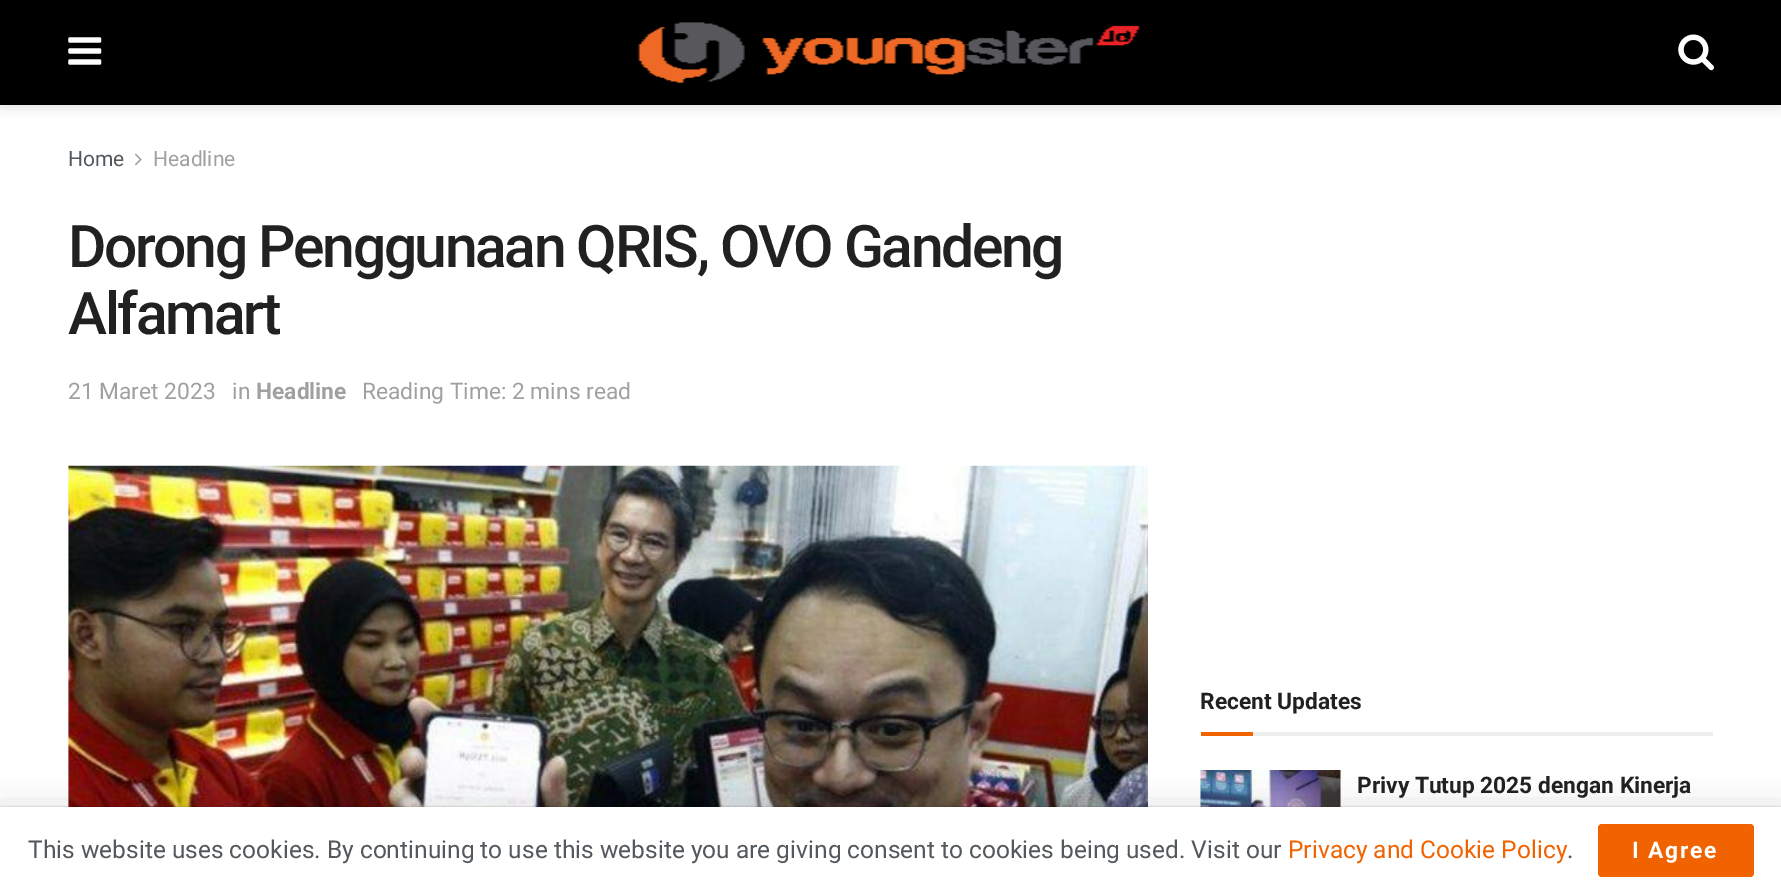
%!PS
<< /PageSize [1781 894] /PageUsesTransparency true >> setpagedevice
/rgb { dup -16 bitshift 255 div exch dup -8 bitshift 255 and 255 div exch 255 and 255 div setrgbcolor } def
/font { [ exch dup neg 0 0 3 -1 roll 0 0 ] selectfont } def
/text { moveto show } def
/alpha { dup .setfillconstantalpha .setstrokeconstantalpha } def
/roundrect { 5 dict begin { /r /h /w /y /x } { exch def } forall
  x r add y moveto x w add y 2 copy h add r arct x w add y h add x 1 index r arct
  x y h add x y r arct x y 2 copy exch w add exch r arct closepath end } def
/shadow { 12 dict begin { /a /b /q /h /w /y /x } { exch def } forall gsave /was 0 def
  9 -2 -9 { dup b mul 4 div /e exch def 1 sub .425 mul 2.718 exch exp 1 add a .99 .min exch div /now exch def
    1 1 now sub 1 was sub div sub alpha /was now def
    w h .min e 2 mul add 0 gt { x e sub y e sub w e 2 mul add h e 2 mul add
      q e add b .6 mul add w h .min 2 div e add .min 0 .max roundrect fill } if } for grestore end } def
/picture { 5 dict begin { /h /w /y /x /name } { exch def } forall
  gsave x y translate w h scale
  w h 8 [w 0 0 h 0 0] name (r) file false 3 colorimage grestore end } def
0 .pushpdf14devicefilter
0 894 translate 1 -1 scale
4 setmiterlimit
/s1 { /Roboto-Regular 21 font 16#53585C rgb } def
/s2 { /Roboto-Regular 21 font 16#A0A0A0 rgb } def
/s3 { /Roboto-Regular 22.75 font 16#A0A0A0 rgb } def
/s4 { /Roboto-Bold 22.75 font 16#A0A0A0 rgb } def
/s5 { /Roboto-Bold 22.75 font 16#212121 rgb } def
/s6 { /Roboto-Regular 24.5 font 16#53585C rgb } def
/s7 { /Roboto-Regular 24.5 font 16#F06300 rgb } def
16#FFFFFF rgb
0 0 1781 894 rectfill
16#000000 rgb
0 4 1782 105 0 5 0.1 shadow
0 0 1781 105 rectfill
(pic1.raw) 68 37 34 28 picture
(pic2.raw) 638 22 502 61 picture
(pic3.raw) 1678 34 36 37 picture
s1
(Home) 68 166 text
(pic4.raw) 135 153 7 13 picture
s2
(Headline) 153 166 text
/Roboto-Medium 58.75 font
16#212121 rgb
68 267 moveto -2.35 0 (Dorong Penggunaan QRIS, OVO Gandeng) ashow
68 334 moveto -2.35 0 (Alfamart) ashow
s3
(21 Maret 2023) 68 399 text
(in) 232 399 text
s4
(Headline) 256 399 text
s3
(Reading Time: 2 mins read) 362 399 text
16#F7F7F7 rgb
68 466 1 341 rectfill
(pic5.raw) 68 465 1080 342 picture
16#EEEEEE rgb
1253 732 460 4 rectfill
s5
(Recent Updates) 1200 709 text
16#F06300 rgb
1201 732 52 4 rectfill
16#F7F7F7 rgb
1340 770 1 37 rectfill
16#FBFBFB rgb
1200 770 1 37 rectfill
(pic6.raw) 1200 770 141 37 picture
s5
(Privy Tutup 2025 dengan Kinerja) 1357 793 text
16#000000 rgb
0 810 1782 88 0 17.5 0.15 shadow
0 807 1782 87 0 1 0.2 shadow
16#FFFFFF rgb
0 807 1781 87 rectfill
s6
(This website uses cookies. By continuing to use this website you are giving consent to cookies being used. Visit our) 28 858 text
s7
(Privacy and Cookie Policy) 1288 858 text
s6
(.) 1567 858 text
16#F06300 rgb
1598 824 156 53 4 roundrect fill
/Roboto-Bold 22.75 font
16#FFFFFF rgb
1632 858 moveto 1.75 0 (I Agree) ashow
.poppdf14devicefilter showpage
